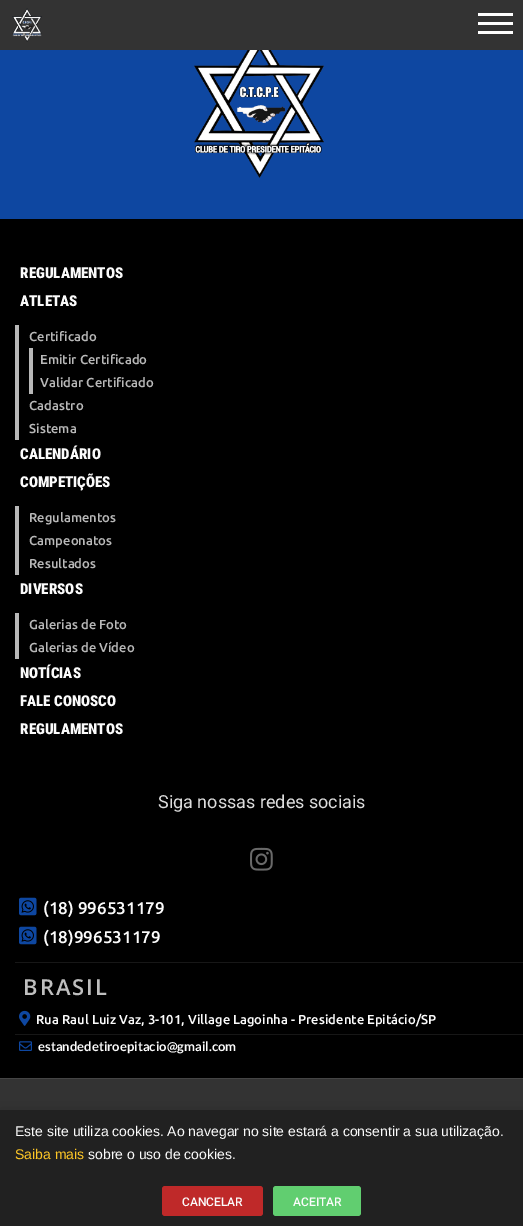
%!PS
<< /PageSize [523 1226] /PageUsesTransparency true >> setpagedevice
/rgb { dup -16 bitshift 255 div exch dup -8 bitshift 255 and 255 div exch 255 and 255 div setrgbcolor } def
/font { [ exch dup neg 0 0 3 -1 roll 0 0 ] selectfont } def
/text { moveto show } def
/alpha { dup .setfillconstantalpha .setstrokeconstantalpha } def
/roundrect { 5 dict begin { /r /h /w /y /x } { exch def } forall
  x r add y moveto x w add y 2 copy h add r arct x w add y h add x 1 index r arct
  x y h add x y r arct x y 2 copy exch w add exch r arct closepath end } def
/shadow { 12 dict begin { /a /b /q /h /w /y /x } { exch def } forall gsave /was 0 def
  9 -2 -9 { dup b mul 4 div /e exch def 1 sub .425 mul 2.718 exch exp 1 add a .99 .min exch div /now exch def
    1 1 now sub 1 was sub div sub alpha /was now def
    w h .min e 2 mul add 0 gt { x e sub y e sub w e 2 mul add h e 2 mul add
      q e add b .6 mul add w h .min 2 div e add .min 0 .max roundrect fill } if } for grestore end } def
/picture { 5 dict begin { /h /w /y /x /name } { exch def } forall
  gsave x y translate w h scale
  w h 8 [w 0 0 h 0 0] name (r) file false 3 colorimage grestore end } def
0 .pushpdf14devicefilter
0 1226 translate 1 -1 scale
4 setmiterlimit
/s1 { /RobotoCondensed-Black 15 font 16#FBFBFB rgb } def
/s2 { /Ubuntu-Medium 13 font 16#B8B8B8 rgb } def
/s3 { /Roboto-Regular 18 font 16#DDDDDD rgb } def
/s4 { /Ubuntu-Medium 17 font 16#FBFBFB rgb } def
/s5 { /Ubuntu-Medium 13 font 16#FBFBFB rgb } def
/s6 { /Lato-Bold 13 font 16#FBFBFB rgb } def
/s7 { /LiberationSans-Regular 14 font 16#FBFBFB rgb } def
/s8 { /LiberationSans-Regular 14 font 16#FEC726 rgb } def
/s9 { /Roboto-Medium 12 font 16#FBFBFB rgb } def
16#0E47A1 rgb
0 0 523 1226 rectfill
16#333333 rgb
0 0 523 50 rectfill
(pic1.raw) 12 8 30 34 picture
16#FFFFFF rgb
478 22 35 3 rectfill
478 13 35 3 rectfill
478 31 35 3 rectfill
(pic2.raw) 194 50 130 128 picture
16#000000 rgb
0 219 523 859 rectfill
s1
(REGULAMENTOS) 20 278 text
(ATLETAS) 20 306 text
16#B8B8B8 rgb
15 325 4 115 rectfill
s2
(Certificado) 29 341 text
29 348 4 46 rectfill
(Emitir Certificado) 40 364 text
(Validar Certificado) 40 387 text
(Cadastro) 29 410 text
(Sistema) 29 433 text
s1
(CALENDÁRIO) 20 459 text
(COMPETIÇÕES) 20 487 text
16#B8B8B8 rgb
15 506 4 69 rectfill
s2
(Regulamentos) 29 522 text
(Campeonatos) 29 545 text
(Resultados) 29 568 text
s1
(DIVERSOS) 20 594 text
16#B8B8B8 rgb
15 613 4 46 rectfill
s2
(Galerias de Foto) 29 629 text
(Galerias de Vídeo) 29 652 text
s1
(NOTÍCIAS) 20 678 text
(FALE CONOSCO) 20 706 text
(REGULAMENTOS) 20 734 text
s3
(Siga nossas redes sociais) 158 808 text
(pic3.raw) 250 847 23 24 picture
16#171717 rgb
15 962 508 1 rectfill
(pic4.raw) 19 897 18 19 picture
s4
(\(18\) 996531179) 43 914 text
(pic4.raw) 19 926 18 19 picture
(\(18\)996531179) 43 943 text
/OpenSans-SemiBold 22 font
16#BFBFBF rgb
23 995 moveto 2 0 (BRASIL) ashow
16#171717 rgb
15 1034 508 1 rectfill
(pic5.raw) 19 1010 12 16 picture
s5
(Rua Raul Luiz Vaz, 3-101, Village Lagoinha - Presidente Epitácio/SP) 36 1024 text
(pic6.raw) 19 1041 13 10 picture
s6
(estandedetiroepitacio@gmail.com) 38 1051 text
16#333333 rgb
0 1079 523 31 rectfill
16#454545 rgb
0 1078 523 1 rectfill
16#000000 rgb
-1 1115 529 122 0 11.5 0.2 shadow
16#212121 rgb
0 1110 523 116 rectfill
s7
(Este site utiliza cookies. Ao navegar no site estará a consentir a sua utilização.) 15 1136 text
s8
(Saiba mais) 15 1159 text
s7
(sobre o uso de cookies.) 88 1159 text
16#BF2929 rgb
162 1186 101 30 3 roundrect fill
s9
(CANCELAR) 182 1206 text
16#61CE70 rgb
273 1186 88 30 3 roundrect fill
s9
(ACEITAR) 293 1206 text
.poppdf14devicefilter showpage
